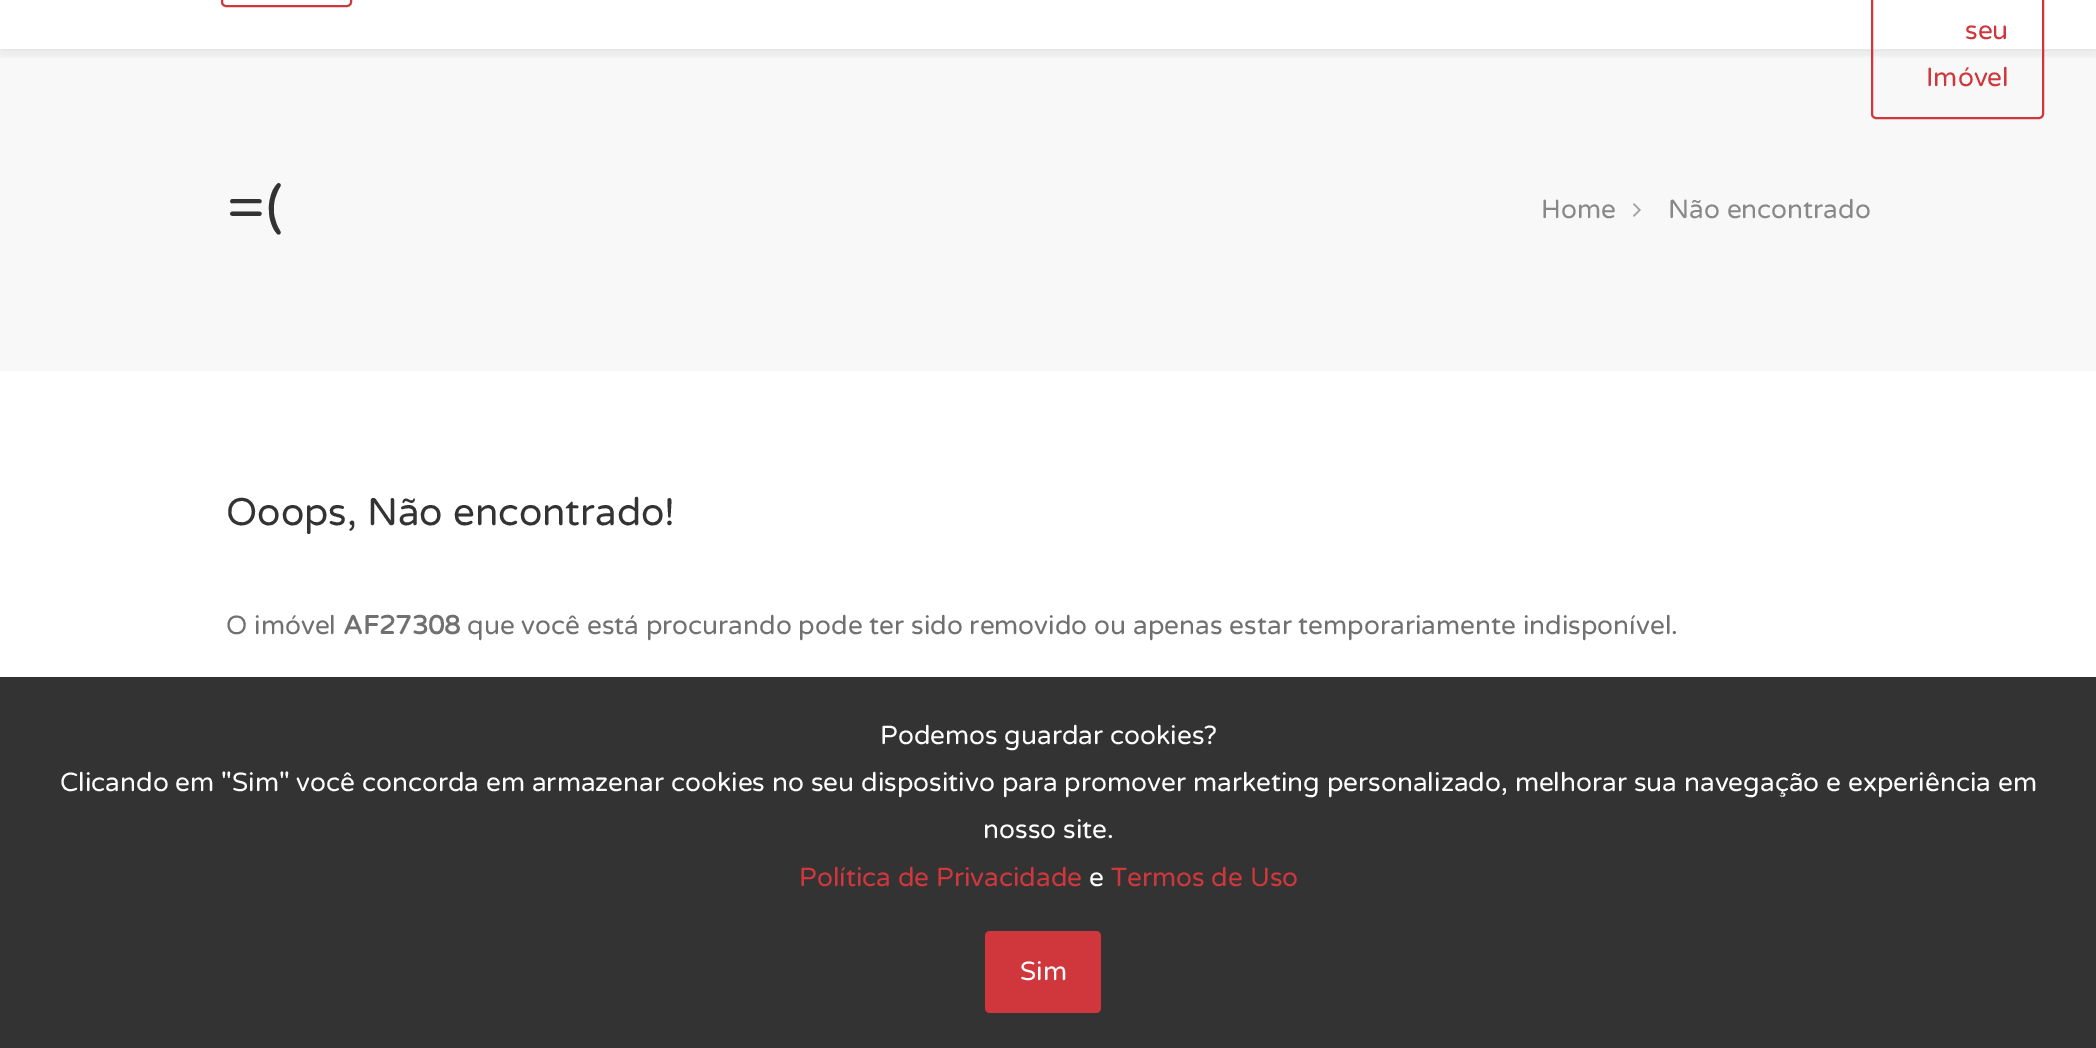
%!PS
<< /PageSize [2096 1048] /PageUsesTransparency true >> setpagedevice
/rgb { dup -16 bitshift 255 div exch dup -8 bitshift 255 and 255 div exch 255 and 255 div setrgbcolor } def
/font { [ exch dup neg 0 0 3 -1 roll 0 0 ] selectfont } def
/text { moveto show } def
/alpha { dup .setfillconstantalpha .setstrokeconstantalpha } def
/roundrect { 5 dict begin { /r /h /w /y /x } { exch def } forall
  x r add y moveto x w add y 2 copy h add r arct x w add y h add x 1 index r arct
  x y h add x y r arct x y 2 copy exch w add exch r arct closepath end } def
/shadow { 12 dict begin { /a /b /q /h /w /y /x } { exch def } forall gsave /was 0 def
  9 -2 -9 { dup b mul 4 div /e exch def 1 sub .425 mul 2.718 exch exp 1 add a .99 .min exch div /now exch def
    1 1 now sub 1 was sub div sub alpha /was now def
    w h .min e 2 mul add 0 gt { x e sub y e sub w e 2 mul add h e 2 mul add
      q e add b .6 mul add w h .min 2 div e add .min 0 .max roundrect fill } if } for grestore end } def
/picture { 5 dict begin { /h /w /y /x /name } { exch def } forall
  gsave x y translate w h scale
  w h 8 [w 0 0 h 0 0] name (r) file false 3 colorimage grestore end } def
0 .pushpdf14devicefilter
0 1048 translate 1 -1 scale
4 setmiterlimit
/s1 { /VarelaRound-Regular 26.25 font 16#CF373C rgb } def
/s2 { /VarelaRound-Regular 56 font 16#333333 rgb } def
/s3 { /VarelaRound-Regular 26.25 font 16#888888 rgb } def
/s4 { /VarelaRound-Regular 38.5 font 16#333333 rgb } def
/s5 { /VarelaRound-Regular 26.25 font 16#707070 rgb } def
/s6 { /VarelaRound-Bold 26.25 font 16#707070 rgb } def
/s7 { /VarelaRound-Regular 26.25 font 16#FEFEFE rgb } def
16#FFFFFF rgb
0 0 2096 1048 rectfill
16#F8F8F8 rgb
0 49 2096 322 rectfill
gsave
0 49 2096 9 rectclip
16#000000 rgb
0 -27 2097 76 0 9 0.12 shadow
grestore
16#CF373C rgb
2 setlinewidth
222 -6 129 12 4 roundrect stroke
1872 -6 171 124 4 roundrect stroke
s1
(seu) 1965 39 text
(Imóvel) 1926 86 text
s2
(=\() 226 226 text
s3
(Home) 1541 218 text
(pic1.raw) 1633 203 8 14 picture
(Não encontrado) 1668 218 text
s4
(Ooops, Não encontrado!) 226 525 text
s5
(O imóvel) 226 634 text
s6
(AF27308) 343 634 text
s5
(que você está procurando pode ter sido removido ou apenas estar temporariamente indisponível.) 467 634 text
16#333333 rgb
0 677 2096 371 rectfill
s7
(Podemos guardar cookies?) 880 744 text
(Clicando em "Sim" você concorda em armazenar cookies no seu dispositivo para promover marketing personalizado, melhorar sua navegação e experiência em) 60 791 text
(nosso site.) 983 838 text
s1
(Política de Privacidade) 799 886 text
s7
(e) 1089 886 text
s1
(Termos de Uso) 1111 886 text
985 931 116 82 5 roundrect fill
s7
(Sim) 1020 980 text
.poppdf14devicefilter showpage
